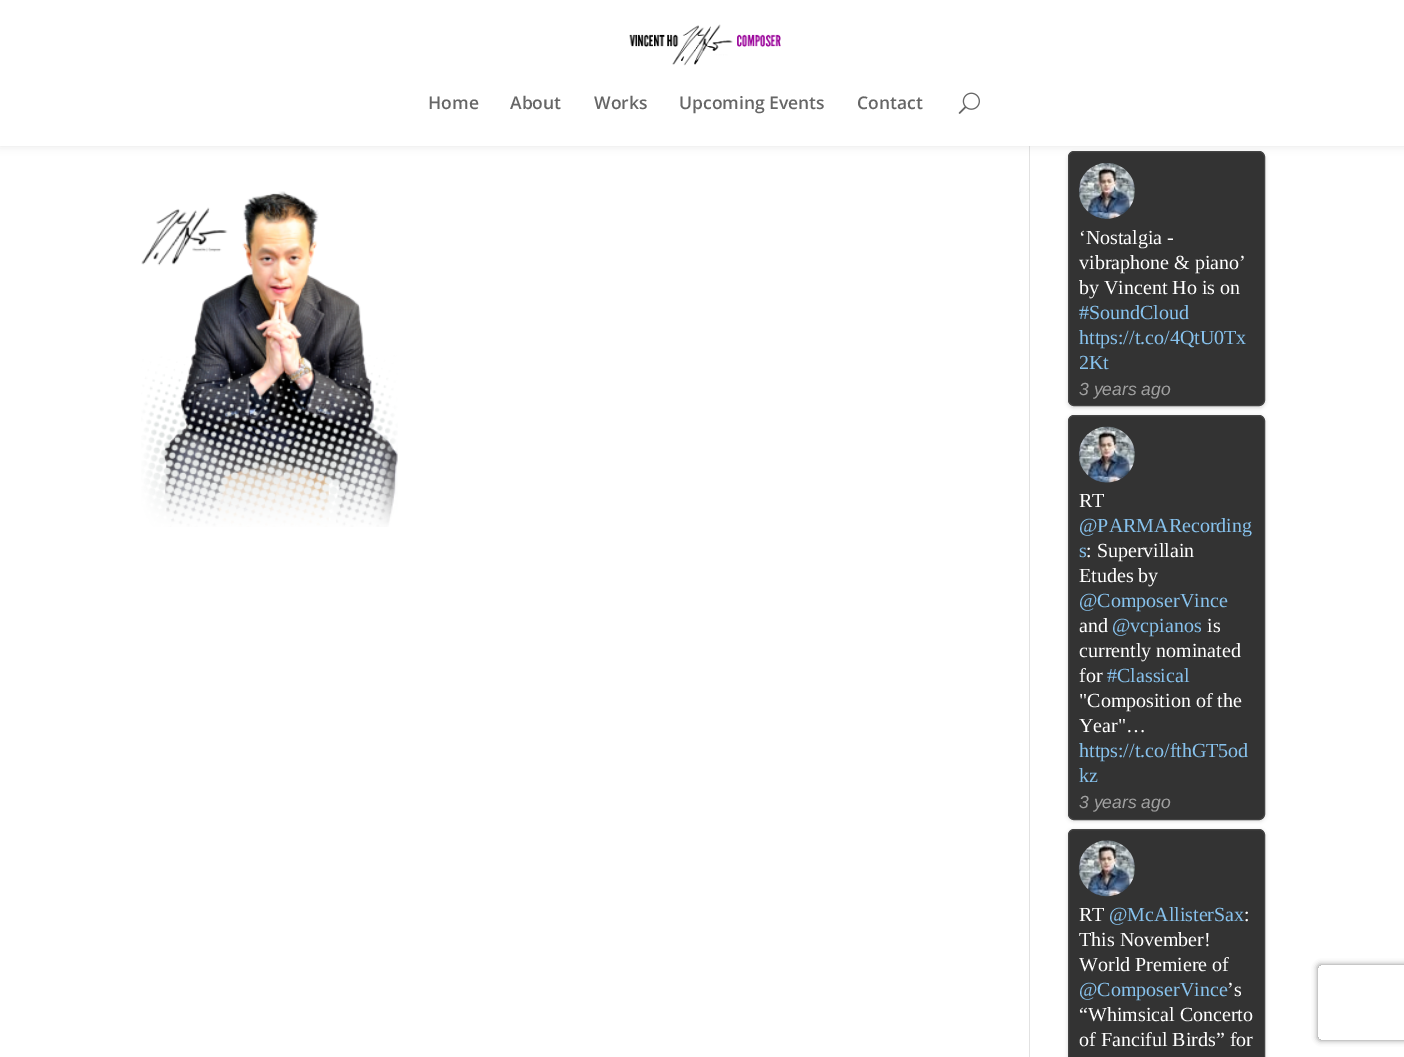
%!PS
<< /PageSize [1404 1057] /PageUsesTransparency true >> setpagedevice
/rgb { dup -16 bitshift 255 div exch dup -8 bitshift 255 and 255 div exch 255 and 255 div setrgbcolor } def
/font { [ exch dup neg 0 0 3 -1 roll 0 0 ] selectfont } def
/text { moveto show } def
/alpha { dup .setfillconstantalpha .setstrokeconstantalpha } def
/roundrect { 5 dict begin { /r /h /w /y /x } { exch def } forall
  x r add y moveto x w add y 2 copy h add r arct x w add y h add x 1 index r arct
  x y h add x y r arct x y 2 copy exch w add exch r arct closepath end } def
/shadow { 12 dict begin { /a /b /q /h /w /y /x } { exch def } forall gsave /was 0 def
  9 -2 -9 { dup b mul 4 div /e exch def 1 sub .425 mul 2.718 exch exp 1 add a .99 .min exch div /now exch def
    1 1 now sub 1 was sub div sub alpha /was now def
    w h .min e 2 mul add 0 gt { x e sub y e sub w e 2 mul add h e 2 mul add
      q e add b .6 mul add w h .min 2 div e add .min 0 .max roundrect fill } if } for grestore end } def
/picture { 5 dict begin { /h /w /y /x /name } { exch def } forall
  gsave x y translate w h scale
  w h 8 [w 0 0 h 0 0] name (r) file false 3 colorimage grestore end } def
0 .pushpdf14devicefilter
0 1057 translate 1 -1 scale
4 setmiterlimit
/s1 { /OpenSans-SemiBold 17.5 font 16#666666 rgb } def
/s2 { /LiberationSerif-Regular 20 font 16#FFFFFF rgb } def
/s3 { /LiberationSerif-Regular 20 font 16#87C2ED rgb } def
/s4 { /LiberationSans-Italic 17.5 font 16#A0A0A0 rgb } def
16#FFFFFF rgb
0 0 1404 1057 rectfill
16#E2E2E2 rgb
1029 146 1 911 rectfill
16#000000 rgb
1068 153 197 255 6 2 0.15 shadow
16#333333 rgb
1068.5 151.5 196 254 5.5 roundrect gsave fill grestore
16#444444 rgb
stroke
16#000000 rgb
0 0 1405 146 0 4.5 0.1 shadow
16#FFFFFF rgb
0 0 1404 146 rectfill
(pic1.raw) 629 24 152 42 picture
s1
(Home) 428 109 text
(About) 510 109 text
(Works) 594 109 text
(Upcoming Events) 679 109 text
(Contact) 857 109 text
(pic2.raw) 958 92 22 22 picture
(pic3.raw) 141 191 257 336 picture
(pic4.raw) 1079 163 56 56 picture
s2
(‘Nostalgia -) 1079 244 text
(vibraphone & piano’) 1079 269 text
(by Vincent Ho is on) 1079 294 text
s3
(#SoundCloud) 1079 319 text
(https://t.co/4QtU0Tx) 1079 344 text
(2Kt) 1079 369 text
s4
(3 years ago) 1079 395 text
16#000000 rgb
1068 416 197 405 6 2 0.15 shadow
16#333333 rgb
1068.5 415.5 196 404 5.5 roundrect gsave fill grestore
16#444444 rgb
stroke
(pic5.raw) 1078 426 57 57 picture
s2
(RT) 1079 507 text
s3
(@PARMARecording) 1079 532 text
(s) 1079 557 text
s2
(: Supervillain) 1086 557 text
(Etudes by) 1079 582 text
s3
(@ComposerVince) 1079 607 text
s2
(and) 1079 632 text
s3
(@vcpianos) 1112 632 text
s2
(is) 1207 632 text
(currently nominated) 1079 657 text
(for) 1079 682 text
s3
(#Classical) 1107 682 text
s2
("Composition of the) 1079 707 text
(Year"…) 1079 732 text
s3
(https://t.co/fthGT5od) 1079 757 text
(kz) 1079 782 text
s4
(3 years ago) 1079 808 text
16#000000 rgb
1068 830 197 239 6 2 0.15 shadow
16#333333 rgb
1068.5 829.5 196 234 5.5 roundrect gsave fill grestore
16#444444 rgb
stroke
(pic6.raw) 1078 840 57 57 picture
s2
(RT) 1079 921 text
s3
(@McAllisterSax) 1109 921 text
s2
(:) 1244 921 text
(This November!) 1079 946 text
(World Premiere of) 1079 971 text
s3
(@ComposerVince) 1079 996 text
s2
(’s) 1227 996 text
(“Whimsical Concerto) 1079 1021 text
(of Fanciful Birds” for) 1079 1046 text
gsave
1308 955 moveto 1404 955 lineto 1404 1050 lineto 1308 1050 lineto closepath 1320.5 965 moveto 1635.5 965 lineto 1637 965 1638 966 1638 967.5 curveto 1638 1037.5 lineto 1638 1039 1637 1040 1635.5 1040 curveto 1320.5 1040 lineto 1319 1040 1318 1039 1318 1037.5 curveto 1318 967.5 lineto 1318 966 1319 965 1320.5 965 curveto closepath eoclip newpath
16#808080 rgb
1318 965 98 75 2.5 3 1 shadow
grestore
.poppdf14devicefilter showpage
